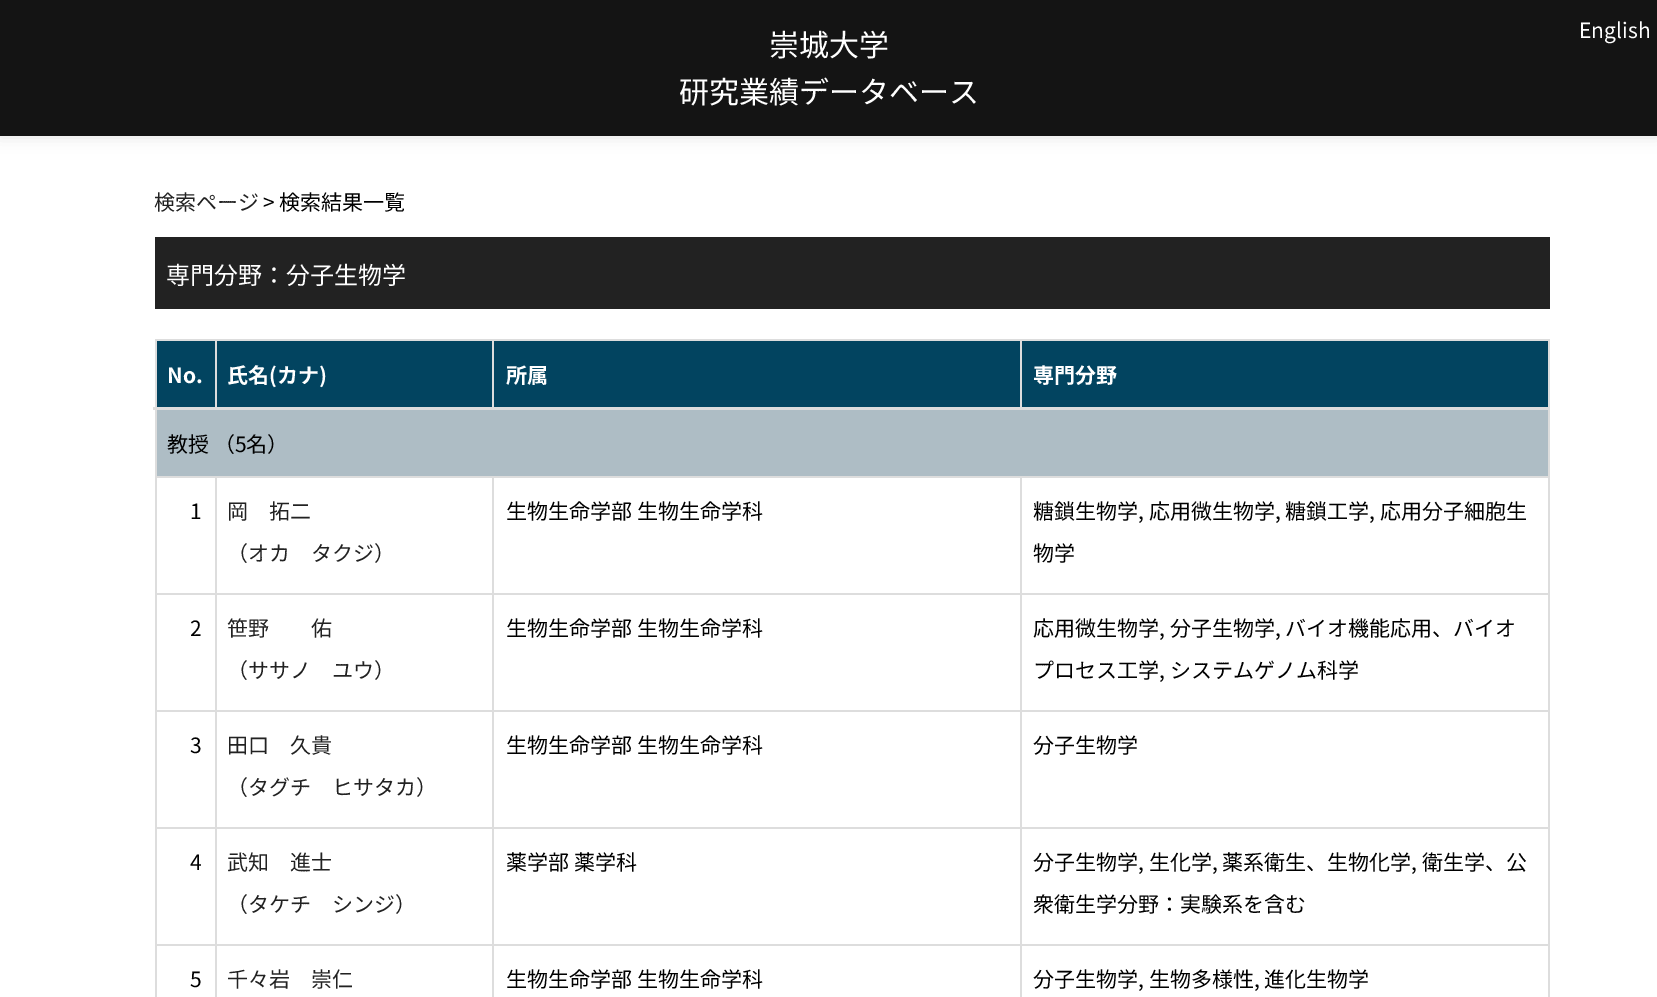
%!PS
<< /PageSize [1657 997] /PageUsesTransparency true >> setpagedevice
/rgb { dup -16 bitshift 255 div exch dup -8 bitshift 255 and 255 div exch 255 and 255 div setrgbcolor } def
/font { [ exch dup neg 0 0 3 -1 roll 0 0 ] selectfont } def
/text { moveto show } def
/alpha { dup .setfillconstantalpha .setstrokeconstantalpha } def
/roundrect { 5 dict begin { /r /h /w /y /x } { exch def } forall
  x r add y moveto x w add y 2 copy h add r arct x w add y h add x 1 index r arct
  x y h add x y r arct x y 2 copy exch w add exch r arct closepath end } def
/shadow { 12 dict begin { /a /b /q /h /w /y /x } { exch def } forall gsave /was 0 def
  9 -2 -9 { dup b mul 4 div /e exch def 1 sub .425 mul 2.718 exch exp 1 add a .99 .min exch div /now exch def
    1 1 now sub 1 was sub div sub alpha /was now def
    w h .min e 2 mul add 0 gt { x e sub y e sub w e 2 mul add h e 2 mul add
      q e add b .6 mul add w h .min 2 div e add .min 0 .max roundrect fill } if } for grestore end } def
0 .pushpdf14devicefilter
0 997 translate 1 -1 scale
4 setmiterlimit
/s1 { /NotoSansJP-Regular 30 font 16#FFFFFF rgb } def
/s2 { /NotoSansJP-Regular 21 font 16#FFFFFF rgb } def
/s3 { /NotoSansJP-Regular 21 font 16#222222 rgb } def
/s4 { /NotoSansJP-Regular 21 font 16#000000 rgb } def
/s5 { /NotoSansJP-Regular 24 font 16#FFFFFF rgb } def
/s6 { /NotoSansJP-Bold 21 font 16#FFFFFF rgb } def
16#FFFFFF rgb
0 0 1657 997 rectfill
16#000000 rgb
0 2 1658 135 0 7.5 0.1 shadow
16#141414 rgb
0 0 1657 136 rectfill
s1
(崇城大学) 769 56 text
(研究業績データベース) 679 103 text
s2
(English) 1579 38 text
s3
(検索ページ) 154 210 text
s4
(> 検索結果一覧) 263 210 text
16#222222 rgb
155 237 1395 72 rectfill
s5
(専門分野：分子生物学) 166 284 text
16#DDDDDD rgb
155 339 1395 2 rectfill
1548 339 2 658 rectfill
155 339 2 658 rectfill
16#024460 rgb
157 341 58 66 rectfill
s6
(No.) 167 383 text
16#024460 rgb
217 341 275 66 rectfill
16#DDDDDD rgb
215 339 2 71 rectfill
s6
(氏名\(カナ\)) 227 383 text
16#024460 rgb
494 341 526 66 rectfill
16#DDDDDD rgb
492 339 2 71 rectfill
s6
(所属) 506 383 text
16#024460 rgb
1022 341 526 66 rectfill
16#DDDDDD rgb
1020 339 2 71 rectfill
153 407 1397 3 rectfill
s6
(専門分野) 1033 383 text
16#AEBDC5 rgb
157 410 1391 66 rectfill
s4
(教授 （5名）) 167 452 text
16#DDDDDD rgb
1020 476 530 2 rectfill
1020 593 530 2 rectfill
1020 710 530 2 rectfill
1020 827 530 2 rectfill
1020 944 530 2 rectfill
1020 944 2 53 rectfill
492 944 530 2 rectfill
1020 827 2 118 rectfill
492 827 530 2 rectfill
1020 710 2 118 rectfill
492 710 530 2 rectfill
1020 593 2 118 rectfill
492 593 530 2 rectfill
1020 476 2 118 rectfill
492 476 530 2 rectfill
492 944 2 53 rectfill
215 944 279 2 rectfill
492 827 2 118 rectfill
215 827 279 2 rectfill
492 710 2 118 rectfill
215 710 279 2 rectfill
492 593 2 118 rectfill
215 593 279 2 rectfill
492 476 2 118 rectfill
215 476 279 2 rectfill
215 944 2 53 rectfill
155 944 61 2 rectfill
215 827 2 118 rectfill
155 827 61 2 rectfill
215 710 2 118 rectfill
155 710 61 2 rectfill
215 593 2 118 rectfill
155 593 61 2 rectfill
215 476 2 118 rectfill
155 476 61 2 rectfill
s4
(1) 190 519 text
s3
(岡　拓二) 227 519 text
(（オカ　タクジ）) 227 561 text
s4
(生物生命学部 生物生命学科) 506 519 text
(糖鎖生物学, 応用微生物学, 糖鎖工学, 応用分子細胞生) 1033 519 text
(物学) 1033 561 text
(2) 190 636 text
s3
(笹野　　佑) 227 636 text
(（ササノ　ユウ）) 227 678 text
s4
(生物生命学部 生物生命学科) 506 636 text
(応用微生物学, 分子生物学, バイオ機能応用、バイオ) 1033 636 text
(プロセス工学, システムゲノム科学) 1033 678 text
(3) 190 753 text
s3
(田口　久貴) 227 753 text
(（タグチ　ヒサタカ）) 227 795 text
s4
(生物生命学部 生物生命学科) 506 753 text
(分子生物学) 1033 753 text
(4) 190 870 text
s3
(武知　進士) 227 870 text
(（タケチ　シンジ）) 227 912 text
s4
(薬学部 薬学科) 506 870 text
(分子生物学, 生化学, 薬系衛生、生物化学, 衛生学、公) 1033 870 text
(衆衛生学分野：実験系を含む) 1033 912 text
(5) 190 987 text
s3
(千々岩　崇仁) 227 987 text
s4
(生物生命学部 生物生命学科) 506 987 text
(分子生物学, 生物多様性, 進化生物学) 1033 987 text
.poppdf14devicefilter showpage
